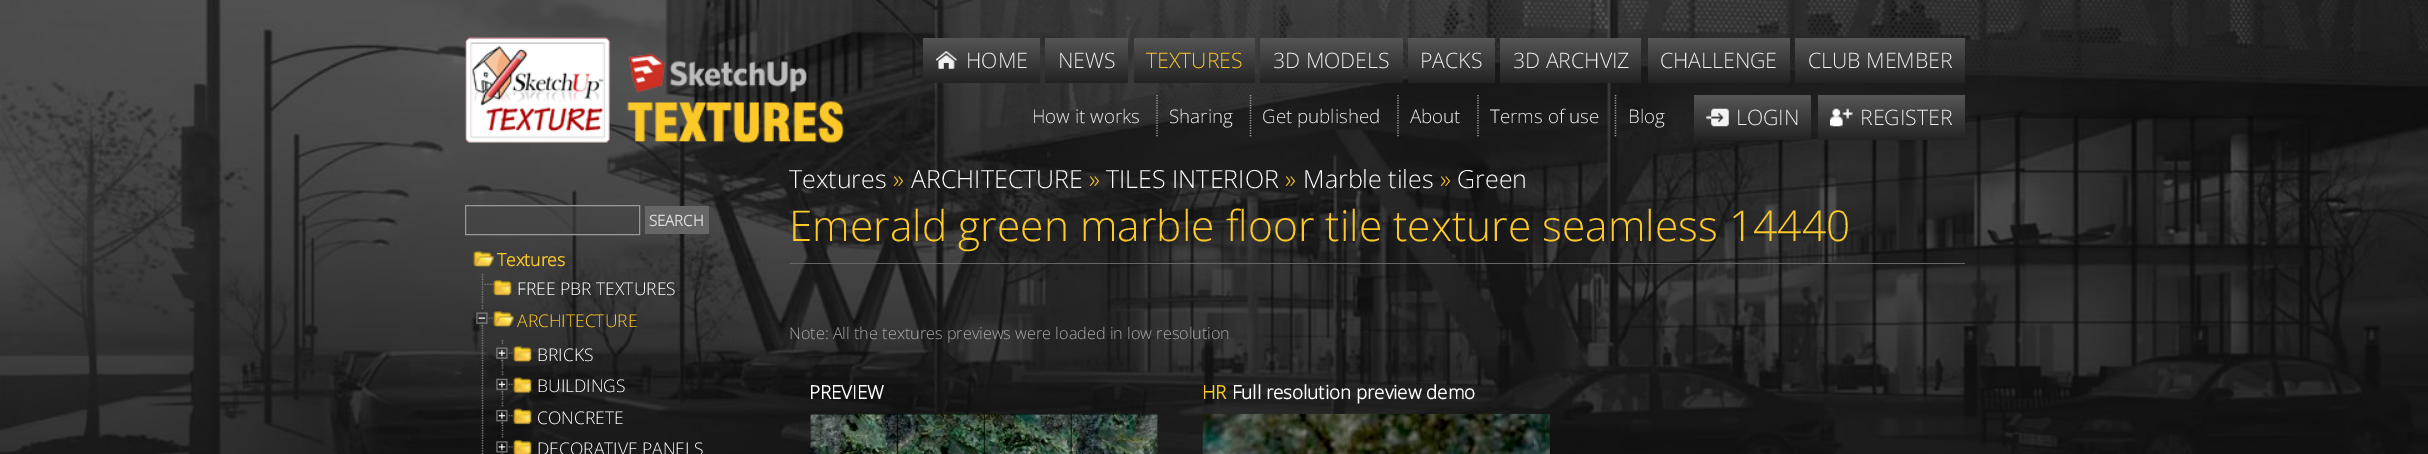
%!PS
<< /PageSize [2428 454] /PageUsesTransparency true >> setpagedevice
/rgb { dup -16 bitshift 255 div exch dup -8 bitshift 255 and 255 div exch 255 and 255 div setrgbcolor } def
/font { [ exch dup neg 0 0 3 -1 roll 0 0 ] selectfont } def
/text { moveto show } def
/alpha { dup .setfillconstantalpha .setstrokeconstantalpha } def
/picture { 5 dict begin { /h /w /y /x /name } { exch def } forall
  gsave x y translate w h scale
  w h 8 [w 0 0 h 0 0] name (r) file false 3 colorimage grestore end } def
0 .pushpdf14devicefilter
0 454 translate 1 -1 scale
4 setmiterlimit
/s1 { /OpenSans-Light 21.25 font 16#EEEEEE rgb } def
/s2 { /OpenSans-Light 21.25 font 16#FDC929 rgb } def
/s3 { /OpenSans-Light 18.75 font 16#EEEEEE rgb } def
/s4 { /OpenSans-Bold 15 font 16#DDDDDD rgb } def
/s5 { /OpenSans-Bold 17.5 font 16#FDC929 rgb } def
/s6 { /OpenSans-Light 17.5 font 16#FFFFFF rgb } def
/s7 { /OpenSans-Light 17.5 font 16#FDC929 rgb } def
/s8 { /OpenSans-Light 25 font 16#FFFFFF rgb } def
/s9 { /OpenSans-Light 25 font 16#FDC929 rgb } def
/s10 { /OpenSans-Light 42.5 font 16#FDC929 rgb } def
/s11 { /OpenSans-Light 16.25 font 16#AAAAAA rgb } def
/s12 { /OpenSans-Bold 18.75 font 16#FFFFFF rgb } def
/s13 { /OpenSans-Bold 18.75 font 16#FDC929 rgb } def
16#FFFFFF rgb
0 0 2428 454 rectfill
(pic1.raw) 0 0 2428 454 picture
(pic2.raw) 465 37 145 106 picture
(pic3.raw) 627 53 217 90 picture
gsave 923 38 moveto 1040 38 lineto 1040 83 lineto 923 83 lineto closepath clip newpath
<< /ShadingType 2 /ColorSpace /DeviceRGB /Coords [981 37 981 83] /Extend [true true] /Function << /FunctionType 2 /Domain [0 1] /C0 [0.337 0.337 0.337] /C1 [0.137 0.137 0.137] /N 1 >> >> shfill grestore
(pic4.raw) 936 51 21 18 picture
s1
(HOME) 966 68 text
gsave 1045 38 moveto 1128 38 lineto 1128 83 lineto 1045 83 lineto closepath clip newpath
<< /ShadingType 2 /ColorSpace /DeviceRGB /Coords [1086 37 1086 83] /Extend [true true] /Function << /FunctionType 2 /Domain [0 1] /C0 [0.337 0.337 0.337] /C1 [0.137 0.137 0.137] /N 1 >> >> shfill grestore
(NEWS) 1058 68 text
gsave 1134 38 moveto 1255 38 lineto 1255 83 lineto 1134 83 lineto closepath clip newpath
<< /ShadingType 2 /ColorSpace /DeviceRGB /Coords [1194 37 1194 83] /Extend [true true] /Function << /FunctionType 2 /Domain [0 1] /C0 [0.337 0.337 0.337] /C1 [0.137 0.137 0.137] /N 1 >> >> shfill grestore
s2
(TEXTURES) 1146 68 text
gsave 1260 38 moveto 1403 38 lineto 1403 83 lineto 1260 83 lineto closepath clip newpath
<< /ShadingType 2 /ColorSpace /DeviceRGB /Coords [1331 37 1331 83] /Extend [true true] /Function << /FunctionType 2 /Domain [0 1] /C0 [0.337 0.337 0.337] /C1 [0.137 0.137 0.137] /N 1 >> >> shfill grestore
s1
(3D MODELS) 1273 68 text
gsave 1408 38 moveto 1495 38 lineto 1495 83 lineto 1408 83 lineto closepath clip newpath
<< /ShadingType 2 /ColorSpace /DeviceRGB /Coords [1451 37 1451 83] /Extend [true true] /Function << /FunctionType 2 /Domain [0 1] /C0 [0.337 0.337 0.337] /C1 [0.137 0.137 0.137] /N 1 >> >> shfill grestore
(PACKS) 1420 68 text
gsave 1500 38 moveto 1641 38 lineto 1641 83 lineto 1500 83 lineto closepath clip newpath
<< /ShadingType 2 /ColorSpace /DeviceRGB /Coords [1571 37 1571 83] /Extend [true true] /Function << /FunctionType 2 /Domain [0 1] /C0 [0.337 0.337 0.337] /C1 [0.137 0.137 0.137] /N 1 >> >> shfill grestore
(3D ARCHVIZ) 1513 68 text
gsave 1648 38 moveto 1790 38 lineto 1790 83 lineto 1648 83 lineto closepath clip newpath
<< /ShadingType 2 /ColorSpace /DeviceRGB /Coords [1719 37 1719 83] /Extend [true true] /Function << /FunctionType 2 /Domain [0 1] /C0 [0.337 0.337 0.337] /C1 [0.137 0.137 0.137] /N 1 >> >> shfill grestore
(CHALLENGE) 1660 68 text
gsave 1795 38 moveto 1965 38 lineto 1965 83 lineto 1795 83 lineto closepath clip newpath
<< /ShadingType 2 /ColorSpace /DeviceRGB /Coords [1880 37 1880 83] /Extend [true true] /Function << /FunctionType 2 /Domain [0 1] /C0 [0.337 0.337 0.337] /C1 [0.137 0.137 0.137] /N 1 >> >> shfill grestore
(CLUB MEMBER) 1808 68 text
s3
(How it works) 1032 123 text
16#999999 rgb
1.2 setlinewidth
[1.25 1.25] 0 setdash
1157 95 moveto 1157 137.5 lineto stroke
s3
(Sharing) 1169 123 text
16#999999 rgb
1250.5 95 moveto 1250.5 137.5 lineto stroke
s3
(Get published) 1262 123 text
16#999999 rgb
1398 95 moveto 1398 137.5 lineto stroke
s3
(About) 1410 123 text
16#999999 rgb
1478 95 moveto 1478 137.5 lineto stroke
s3
(Terms of use) 1490 123 text
16#999999 rgb
1615.5 95 moveto 1615.5 137.5 lineto stroke
s3
(Blog) 1628 123 text
gsave 1694 95 moveto 1811 95 lineto 1811 140 lineto 1694 140 lineto closepath clip newpath
<< /ShadingType 2 /ColorSpace /DeviceRGB /Coords [1753 95 1753 140] /Extend [true true] /Function << /FunctionType 2 /Domain [0 1] /C0 [0.337 0.337 0.337] /C1 [0.137 0.137 0.137] /N 1 >> >> shfill grestore
(pic5.raw) 1706 108 23 19 picture
s1
(LOGIN) 1736 125 text
gsave 1818 95 moveto 1965 95 lineto 1965 140 lineto 1818 140 lineto closepath clip newpath
<< /ShadingType 2 /ColorSpace /DeviceRGB /Coords [1891 95 1891 140] /Extend [true true] /Function << /FunctionType 2 /Domain [0 1] /C0 [0.337 0.337 0.337] /C1 [0.137 0.137 0.137] /N 1 >> >> shfill grestore
(pic6.raw) 1830 108 23 19 picture
(REGISTER) 1860 125 text
0.6 alpha
16#464646 rgb
466 206 115 28 rectfill
1 alpha
16#999999 rgb
1 setlinewidth
[] 0 setdash
465.5 205.5 174 29 rectstroke
16#666666 rgb
645 206 64 28 rectfill
s4
(SEARCH) 649 226 text
(pic7.raw) 472 251 22 17 picture
s5
(Textures) 497 266 text
(pic8.raw) 481 273 13 31 picture
(pic9.raw) 492 279 20 17 picture
s6
(FREE PBR TEXTURES) 517 295 text
(pic10.raw) 481 304 3 150 picture
(pic12.raw) 492 311 22 17 picture
(pic11.raw) 476 312 17 15 picture
s7
(ARCHITECTURE) 517 327 text
(pic13.raw) 501 339 3 31 picture
(pic15.raw) 512 346 20 17 picture
(pic14.raw) 496 347 17 15 picture
s6
(BRICKS) 537 361 text
(pic16.raw) 501 371 3 31 picture
(pic18.raw) 512 377 20 17 picture
(pic17.raw) 496 378 17 15 picture
(BUILDINGS) 537 392 text
(pic19.raw) 501 402 3 31 picture
(pic21.raw) 512 408 20 17 picture
(pic20.raw) 496 409 17 15 picture
(CONCRETE) 537 424 text
(pic22.raw) 501 433 3 21 picture
(pic24.raw) 512 439 20 15 picture
(pic23.raw) 496 441 17 13 picture
(DECORATIVE PANELS) 537 455 text
s8
(Textures) 789 188 text
s9
(») 893 188 text
s8
(ARCHITECTURE) 911 188 text
s9
(») 1089 188 text
s8
(TILES INTERIOR) 1106 188 text
s9
(») 1285 188 text
s8
(Marble tiles) 1303 188 text
s9
(») 1440 188 text
s8
(Green) 1457 188 text
16#666666 rgb
790 263 1175 1 rectfill
s10
(Emerald green marble floor tile texture seamless 14440) 789 241 text
s11
(Note: All the textures previews were loaded in low resolution) 789 339 text
s12
(PREVIEW) 809 399 text
16#272727 rgb
1157 414 1 40 rectfill
(pic25.raw) 810 413 348 41 picture
s13
(HR) 1202 399 text
s12
(Full resolution preview demo) 1232 399 text
(pic26.raw) 1202 413 348 41 picture
.poppdf14devicefilter showpage
